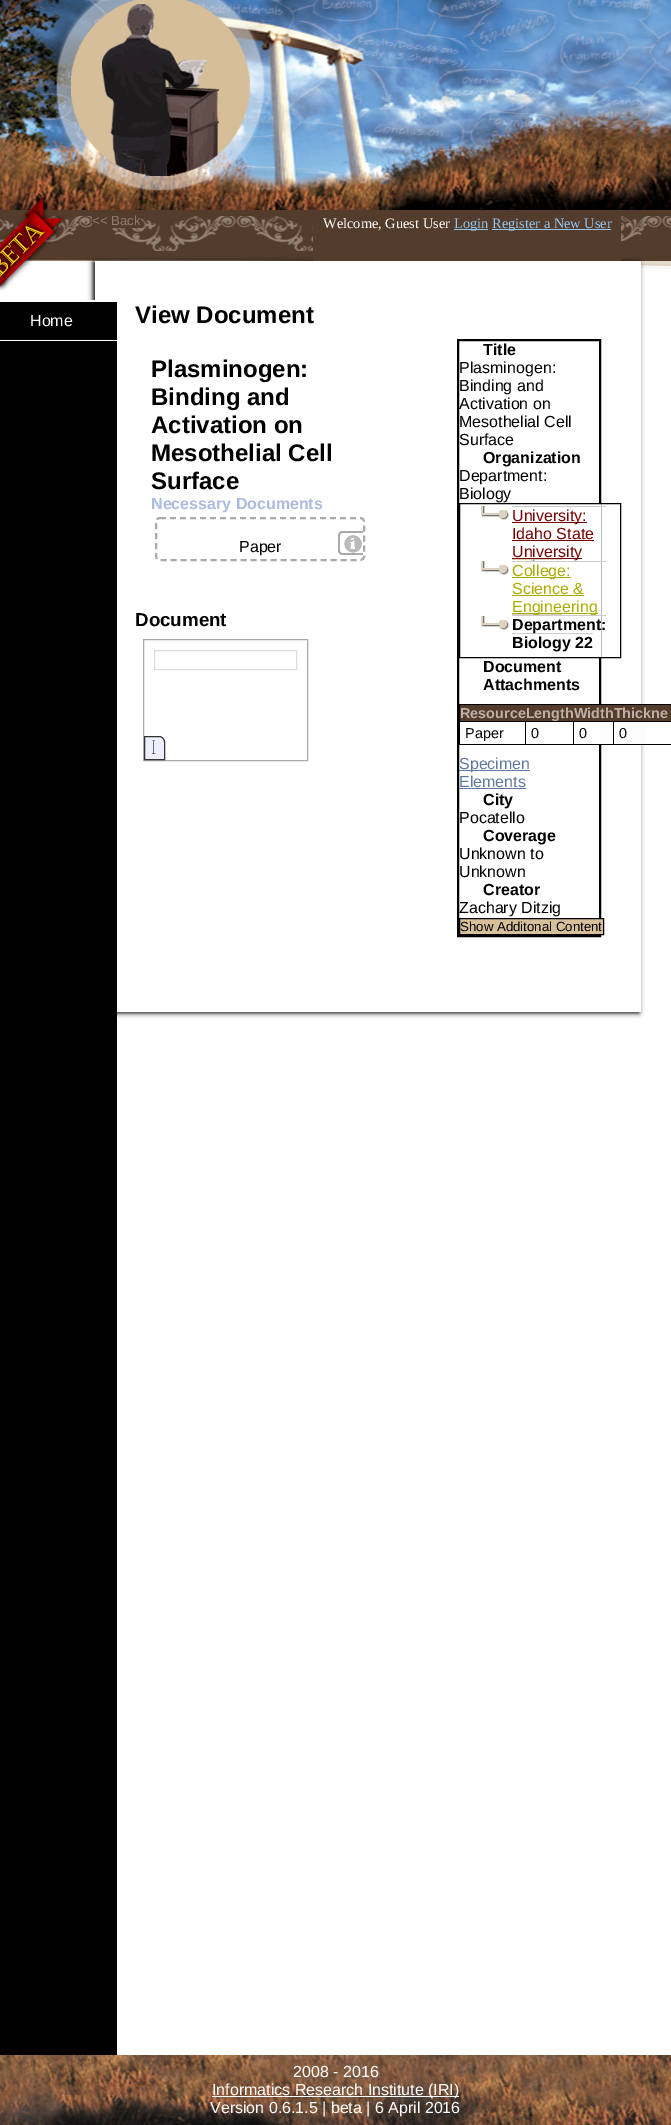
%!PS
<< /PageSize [671 2125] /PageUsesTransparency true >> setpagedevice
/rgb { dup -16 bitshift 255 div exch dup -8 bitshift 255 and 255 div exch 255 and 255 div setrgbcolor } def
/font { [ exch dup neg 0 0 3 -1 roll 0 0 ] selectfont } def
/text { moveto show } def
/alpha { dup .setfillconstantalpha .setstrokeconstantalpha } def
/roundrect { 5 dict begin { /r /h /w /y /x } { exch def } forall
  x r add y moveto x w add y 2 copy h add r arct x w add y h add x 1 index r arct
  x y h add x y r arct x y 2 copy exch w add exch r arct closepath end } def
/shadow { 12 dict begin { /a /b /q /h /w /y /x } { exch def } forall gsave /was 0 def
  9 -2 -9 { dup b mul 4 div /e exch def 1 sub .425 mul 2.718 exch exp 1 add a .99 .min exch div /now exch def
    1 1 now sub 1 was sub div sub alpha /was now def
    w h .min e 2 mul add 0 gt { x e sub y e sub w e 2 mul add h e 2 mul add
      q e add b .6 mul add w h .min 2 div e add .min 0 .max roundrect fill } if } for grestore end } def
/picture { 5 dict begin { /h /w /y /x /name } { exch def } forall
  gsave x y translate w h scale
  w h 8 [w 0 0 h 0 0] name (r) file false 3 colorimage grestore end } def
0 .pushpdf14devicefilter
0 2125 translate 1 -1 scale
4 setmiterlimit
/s1 { /LiberationSans-Regular 13.25 font 16#907A6C rgb } def
/s2 { /LiberationSerif-Regular 14.4 font 16#FFFFFF rgb } def
/s3 { /LiberationSerif-Regular 14.4 font 16#93C6F1 rgb } def
/s4 { /LiberationSans-Regular 16 font 16#FFFFFF rgb } def
/s5 { /LiberationSans-Bold 24 font 16#000000 rgb } def
/s6 { /LiberationSans-Bold 16 font 16#AABBDD rgb } def
/s7 { /LiberationSans-Regular 16 font 16#000000 rgb } def
/s8 { /LiberationSans-Bold 18.75 font 16#000000 rgb } def
/s9 { /NotoSans-Thin 19 font 16#000000 rgb } def
/s10 { /LiberationSans-Bold 16 font 16#000000 rgb } def
/s11 { /LiberationSans-Regular 16 font 16#770000 rgb } def
/s12 { /LiberationSans-Regular 16 font 16#AAAA00 rgb } def
/s13 { /LiberationSans-Bold 14.4 font 16#BFAFA6 rgb } def
/s14 { /LiberationSans-Regular 14.4 font 16#000000 rgb } def
/s15 { /LiberationSans-Regular 16 font 16#607A9F rgb } def
/s16 { /LiberationSans-Regular 13.25 font 16#000000 rgb } def
16#FFFFFF rgb
0 0 671 2125 rectfill
(pic1.raw) 0 0 671 269 picture
(pic2.raw) 0 196 65 95 picture
16#533C2C rgb
92 213 49 15 rectfill
s1
(<< Back) 92 225 text
(pic3.raw) 56 0 209 191 picture
16#000000 rgb
93 262 546 751 0 2.5 1 shadow
16#533C2C rgb
313 210 308 51 rectfill
s2
(Welcome, Guest User) 323 228 text
16#93C6F1 rgb
454 229 34 1 rectfill
(Login) 454 228 text
492 229 119 1 rectfill
(Register a New User) 492 228 text
16#FFFFFF rgb
95 261 546 751 rectfill
16#000000 rgb
0 302 117 1753 rectfill
16#FFFFFF rgb
87 300 8 2 rectfill
0 340 117 1 rectfill
s4
(Home) 30 326 text
s5
(View Document) 135 323 text
(Plasminogen:) 151 377 text
(Binding and) 151 405 text
(Activation on) 151 433 text
(Mesothelial Cell) 151 461 text
(Surface) 151 489 text
s6
(Necessary Documents) 151 509 text
16#AAAAAA rgb
2 setlinewidth
[6 4] 0 setdash
160 518 moveto 360 518 lineto 362.5 518 364 519.5 364 522 curveto 364 556 lineto 364 558.5 362.5 560 360 560 curveto 160 560 lineto 157.5 560 156 558.5 156 556 curveto 156 522 lineto 156 519.5 157.5 518 160 518 curveto closepath stroke
s7
(Paper) 239 552 text
(pic4.raw) 344 535 18 18 picture
16#AAAAAA rgb
342.5 531 moveto 363 531 lineto 363 555 lineto 342.5 555 lineto 340 555 338 553 338 550.5 curveto 338 535.5 lineto 338 533 340 531 342.5 531 curveto closepath 342.5 533 moveto 363 533 lineto 363 553 lineto 342.5 553 lineto 341 553 340 552 340 550.5 curveto 340 535.5 lineto 340 534 341 533 342.5 533 curveto closepath eofill
s8
(Document) 135 626 text
16#AAAAAA rgb
1 setlinewidth
[] 0 setdash
143.5 639.5 164 121 rectstroke
16#DDDDDD rgb
154.5 650.5 142 19 rectstroke
16#EEEEFF rgb
144.5 736.5 moveto 159 736.5 lineto 162 736.5 164.5 739 164.5 742 curveto 164.5 759.5 lineto 144.5 759.5 lineto closepath gsave fill grestore
16#333333 rgb
stroke
s9
(I) 151 754 text
2 setlinewidth
458 340 142 596 rectstroke
s10
(Title) 483 355 text
s7
(Plasminogen:) 459 373 text
(Binding and) 459 391 text
(Activation on) 459 409 text
(Mesothelial Cell) 459 427 text
(Surface) 459 445 text
s10
(Organization) 483 463 text
s7
(Department:) 459 481 text
(Biology) 459 499 text
16#FFFFFF rgb
599 504 2 153 rectfill
16#000000 rgb
1 setlinewidth
459.5 503.5 161 154 rectstroke
(pic5.raw) 481 506 28 14 picture
(pic6.raw) 512 559 50 2 picture
16#CCCCCC rgb
512 506 94 1 rectfill
16#770000 rgb
512 522 75 1 rectfill
(University:) 512 521 text
(Idaho State) 512 539 text
512 540 82 1 rectfill
512 558 70 1 rectfill
(University) 512 557 text
(pic5.raw) 481 561 28 14 picture
(pic7.raw) 512 614 50 1 picture
16#CCCCCC rgb
512 561 94 1 rectfill
16#AAAA00 rgb
512 577 59 1 rectfill
(College:) 512 576 text
(Science &) 512 594 text
512 595 72 1 rectfill
512 613 86 1 rectfill
(Engineering) 512 612 text
(pic5.raw) 481 616 28 14 picture
16#CCCCCC rgb
512 633 81 1 rectfill
s10
(Department:) 512 630 text
16#CCCCCC rgb
512 615 94 1 rectfill
s10
(Biology 22) 512 648 text
(Document) 483 672 text
(Attachments) 483 690 text
459 704 212 1 rectfill
459 744 212 1 rectfill
459 704 1 41 rectfill
16#533C2C rgb
460 705 211 16 rectfill
16#000000 rgb
525 721 1 24 rectfill
573 721 1 24 rectfill
16#FDFDFD rgb
599 722 45 22 rectfill
16#000000 rgb
613 721 1 24 rectfill
459 721 212 1 rectfill
s13
(ResourceLengthWidthThickne) 460 718 text
s14
(Paper) 465 738 text
(0) 531 738 text
(0) 579 738 text
(0) 619 738 text
16#607A9F rgb
459 770 71 1 rectfill
s15
(Specimen) 459 769 text
(Elements) 459 787 text
459 788 67 1 rectfill
s10
(City) 483 805 text
s7
(Pocatello) 459 823 text
s10
(Coverage) 483 841 text
s7
(Unknown to) 459 859 text
(Unknown) 459 877 text
s10
(Creator) 483 895 text
s7
(Zachary Ditzig) 459 913 text
16#D7BF99 rgb
459.5 918.5 moveto 603.5 918.5 lineto 603.5 934.5 lineto 459.5 934.5 lineto closepath gsave fill grestore
16#000000 rgb
stroke
s16
(Show Additonal Content) 460 931 text
(pic8.raw) 0 2055 671 70 picture
s4
(2008 - 2016) 293 2077 text
212 2096 247 1 rectfill
(Informatics Research Institute \(IRI\)) 212 2095 text
(Version 0.6.1.5 | beta | 6 April 2016) 210 2113 text
.poppdf14devicefilter showpage
